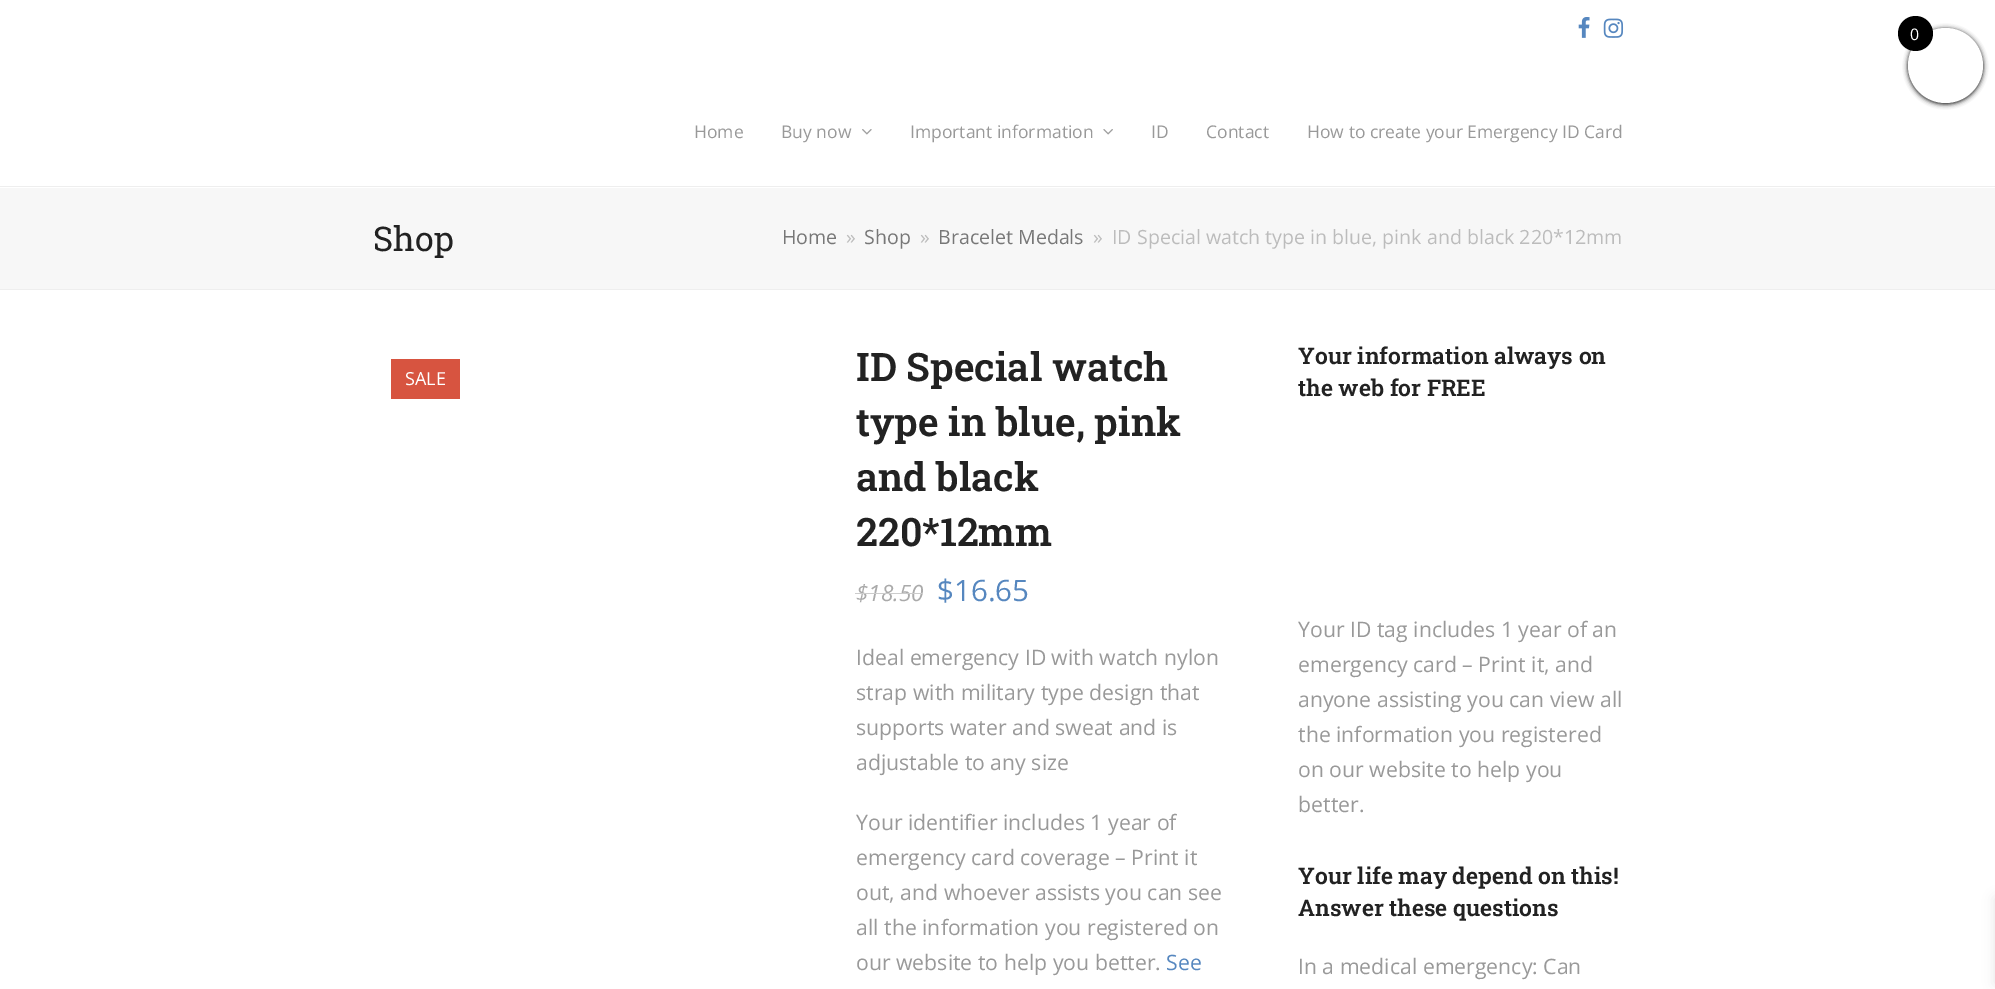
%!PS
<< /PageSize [1995 989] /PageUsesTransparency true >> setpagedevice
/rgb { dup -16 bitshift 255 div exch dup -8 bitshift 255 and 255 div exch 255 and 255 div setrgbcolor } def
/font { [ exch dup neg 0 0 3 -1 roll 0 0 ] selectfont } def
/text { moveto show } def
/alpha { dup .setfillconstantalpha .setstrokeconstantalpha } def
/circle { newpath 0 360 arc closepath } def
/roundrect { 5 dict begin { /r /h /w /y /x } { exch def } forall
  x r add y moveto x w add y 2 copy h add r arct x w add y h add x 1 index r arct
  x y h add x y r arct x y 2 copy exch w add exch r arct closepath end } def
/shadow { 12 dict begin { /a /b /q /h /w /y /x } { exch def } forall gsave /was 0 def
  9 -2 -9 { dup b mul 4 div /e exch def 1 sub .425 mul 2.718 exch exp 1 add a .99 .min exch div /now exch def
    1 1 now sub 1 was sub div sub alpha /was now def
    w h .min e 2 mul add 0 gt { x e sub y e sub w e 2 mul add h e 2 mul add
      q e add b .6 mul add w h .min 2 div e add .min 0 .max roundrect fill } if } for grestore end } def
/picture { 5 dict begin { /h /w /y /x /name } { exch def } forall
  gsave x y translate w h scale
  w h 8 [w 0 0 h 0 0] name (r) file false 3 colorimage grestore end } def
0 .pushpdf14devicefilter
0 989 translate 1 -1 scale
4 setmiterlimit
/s1 { /OpenSans-Regular 16 font 16#FFFFFF rgb } def
/s2 { /OpenSans-Regular 17.5 font 16#999999 rgb } def
/s3 { /RobotoSlab-Regular 34 font 16#222222 rgb } def
/s4 { /OpenSans-Regular 19.6 font 16#777777 rgb } def
/s5 { /OpenSans-Regular 19.6 font 16#BCBCBC rgb } def
/s6 { /OpenSans-Regular 18 font 16#FFFFFF rgb } def
/s7 { /RobotoSlab-SemiBold 39.25 font 16#222222 rgb } def
/s8 { /OpenSans-Italic 22.5 font 16#AAAAAA rgb } def
/s9 { /OpenSans-Regular 29.5 font 16#5687BF rgb } def
/s10 { /OpenSans-Regular 21.25 font 16#999999 rgb } def
/s11 { /OpenSans-Regular 21.25 font 16#5687BF rgb } def
/s12 { /RobotoSlab-SemiBold 22.9 font 16#222222 rgb } def
16#FFFFFF rgb
0 0 1995 989 rectfill
16#000000 rgb
1908 29 75 75 37.5 2.5 1 shadow
16#FFFFFF rgb
1945.5 65.5 37.5 circle fill
16#000000 rgb
1915.5 33.5 17.5 circle fill
s1
(0) 1910 40 text
16#000000 rgb
1995 898 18 86 0 6 0.1 shadow
(pic1.raw) 1578 17 12 21 picture
(pic2.raw) 1603 18 21 20 picture
s2
(Home) 694 138 text
(Buy now) 781 138 text
(pic3.raw) 862 129 10 6 picture
(Important information) 910 138 text
(pic4.raw) 1103 129 10 6 picture
(ID) 1151 138 text
(Contact) 1206 138 text
(How to create your Emergency ID Card) 1307 138 text
16#F7F7F7 rgb
0 188 1995 101 rectfill
16#EEEEEE rgb
0 186 1995 1 rectfill
0 289 1995 1 rectfill
s3
(Shop) 373 251 text
s4
(Home) 782 244 text
s5
(») 846 244 text
s4
(Shop) 864 244 text
s5
(») 920 244 text
s4
(Bracelet Medals) 938 244 text
s5
(») 1093 244 text
(ID Special watch type in blue, pink and black 220*12mm) 1112 244 text
16#D75440 rgb
391 359 69 40 rectfill
s6
(SALE) 405 385 text
s7
(ID Special watch) 856 381 text
(type in blue, pink) 856 436 text
(and black) 856 491 text
(220*12mm) 856 546 text
s8
($18.50) 856 601 text
16#CCCCCC rgb
855 593 68 1 rectfill
s9
($16.65) 937 601 text
s10
(Ideal emergency ID with watch nylon) 856 665 text
(strap with military type design that) 856 700 text
(supports water and sweat and is) 856 735 text
(adjustable to any size) 856 770 text
(Your identifier includes 1 year of) 856 830 text
(emergency card coverage – Print it) 856 865 text
(out, and whoever assists you can see) 856 900 text
(all the information you registered on) 856 935 text
(our website to help you better.) 856 970 text
s11
(See) 1166 970 text
s12
(Your information always on) 1298 364 text
(the web for FREE) 1298 396 text
s10
(Your ID tag includes 1 year of an) 1298 637 text
(emergency card – Print it, and) 1298 672 text
(anyone assisting you can view all) 1298 707 text
(the information you registered) 1298 742 text
(on our website to help you) 1298 777 text
(better.) 1298 812 text
s12
(Your life may depend on this!) 1298 884 text
(Answer these questions) 1298 916 text
s10
(In a medical emergency: Can) 1298 974 text
.poppdf14devicefilter showpage
